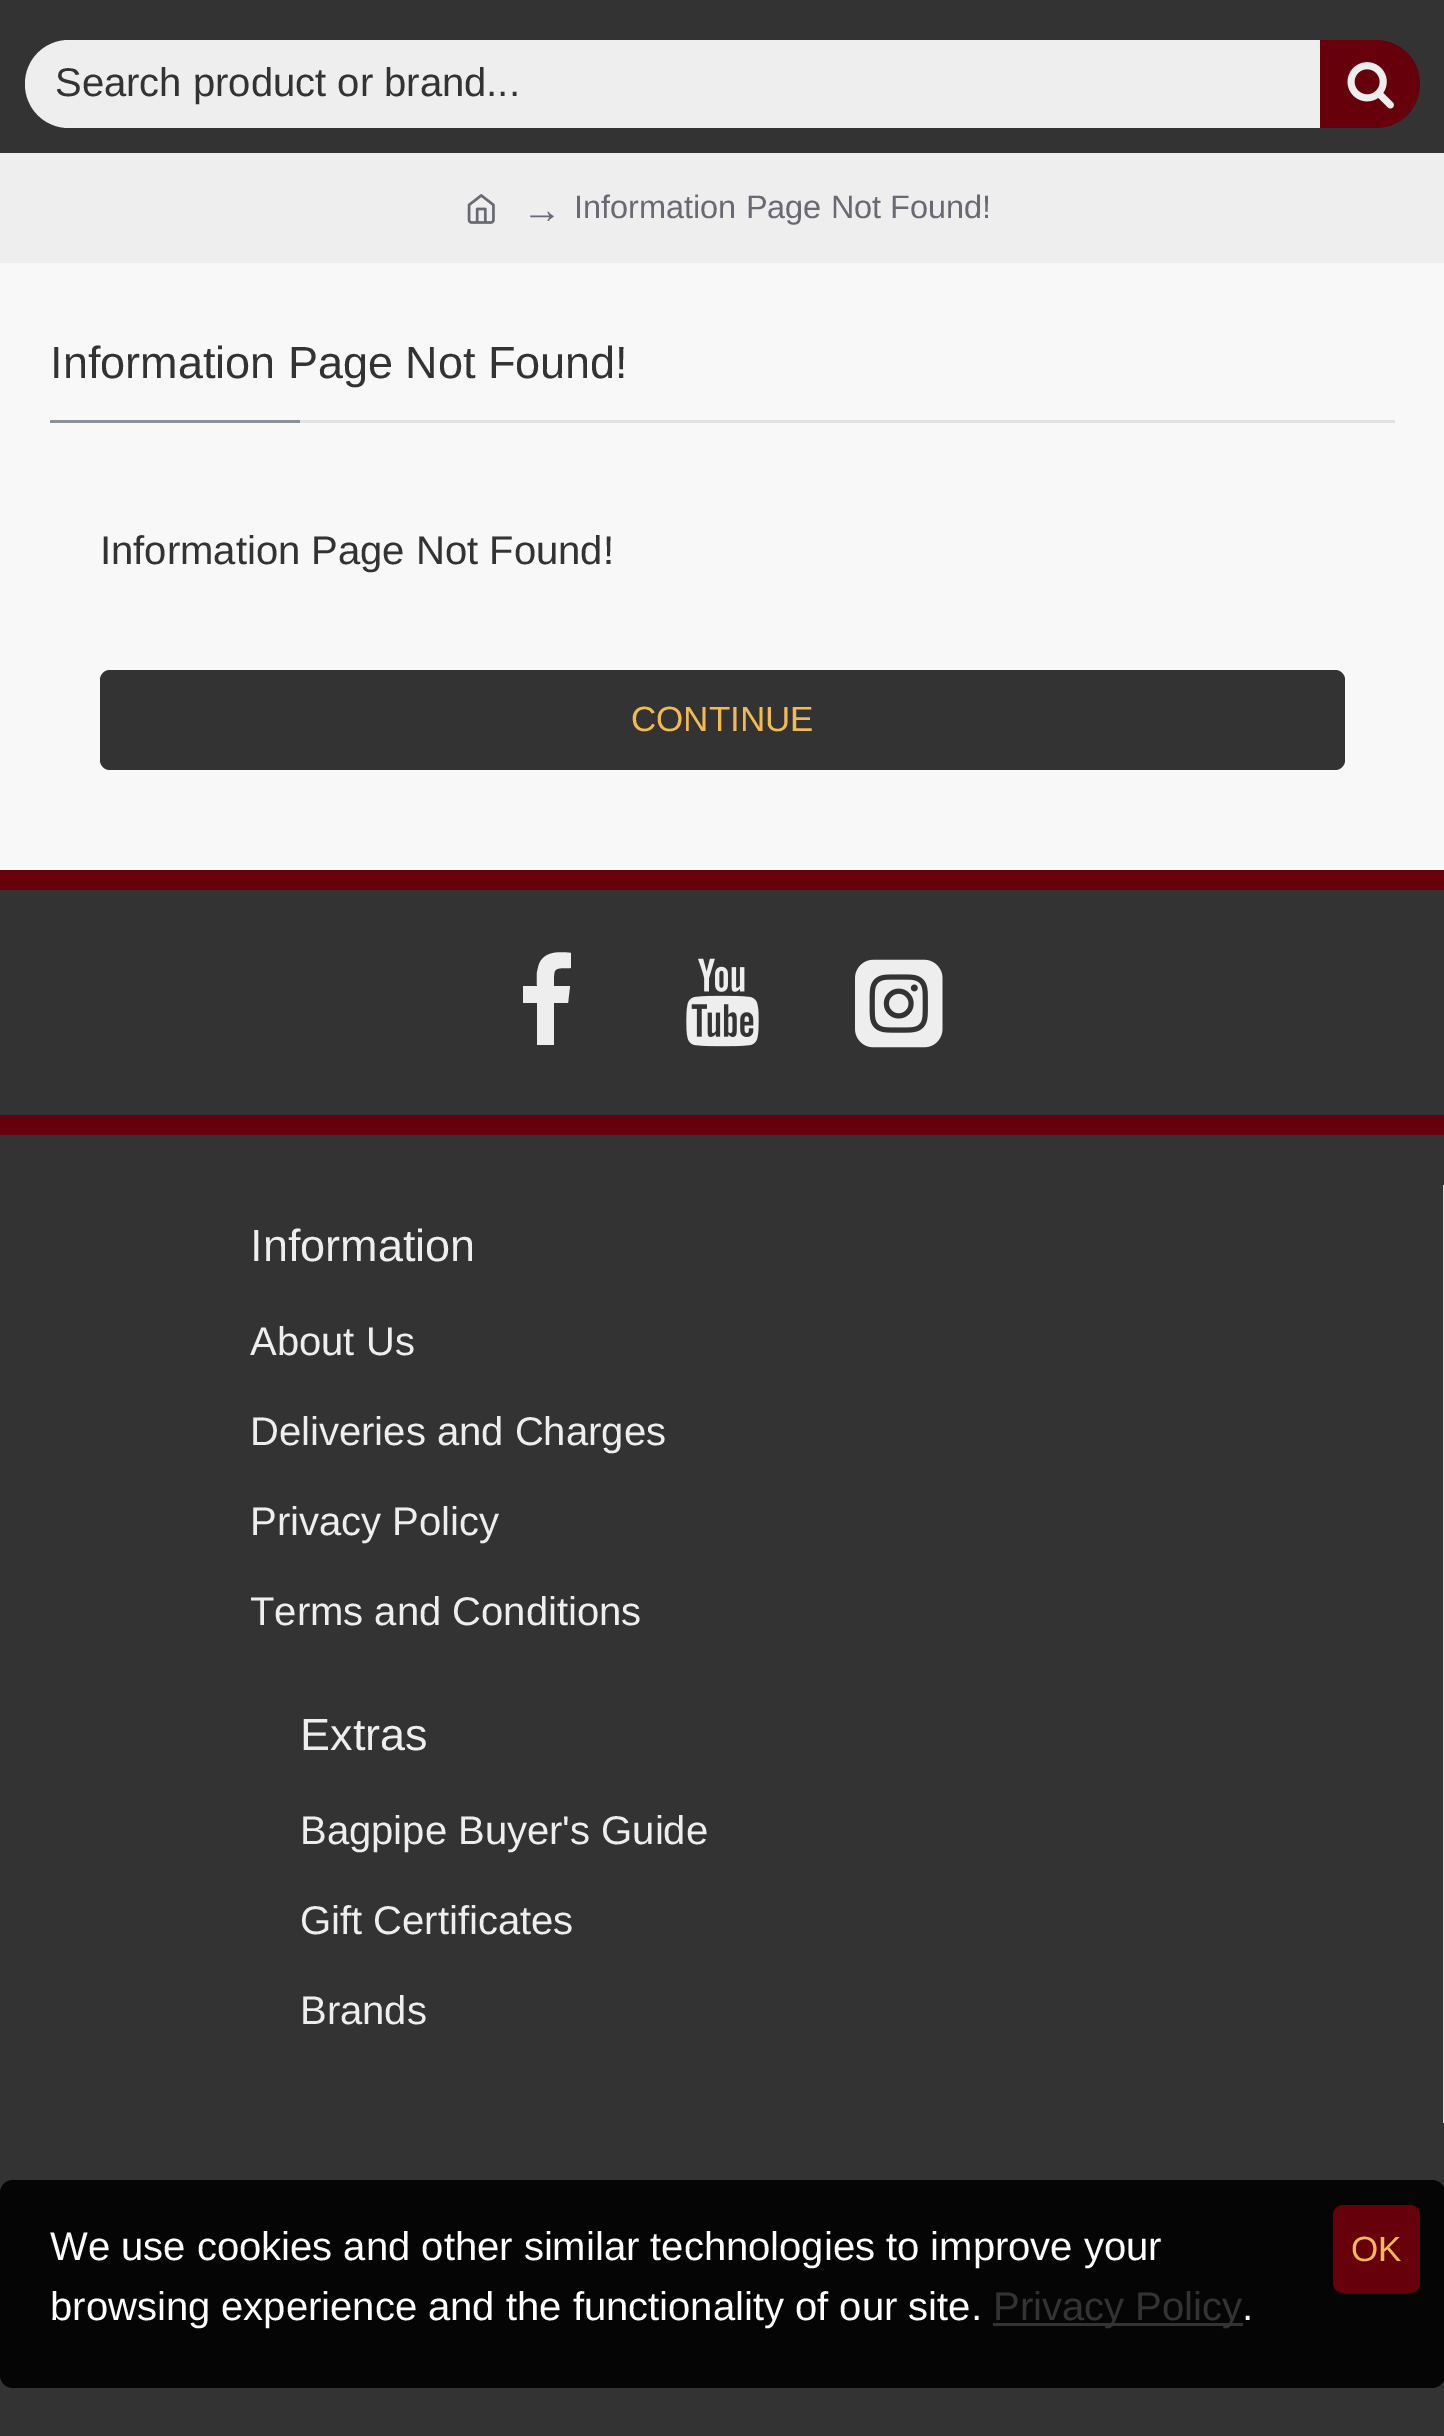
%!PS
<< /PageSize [1444 2436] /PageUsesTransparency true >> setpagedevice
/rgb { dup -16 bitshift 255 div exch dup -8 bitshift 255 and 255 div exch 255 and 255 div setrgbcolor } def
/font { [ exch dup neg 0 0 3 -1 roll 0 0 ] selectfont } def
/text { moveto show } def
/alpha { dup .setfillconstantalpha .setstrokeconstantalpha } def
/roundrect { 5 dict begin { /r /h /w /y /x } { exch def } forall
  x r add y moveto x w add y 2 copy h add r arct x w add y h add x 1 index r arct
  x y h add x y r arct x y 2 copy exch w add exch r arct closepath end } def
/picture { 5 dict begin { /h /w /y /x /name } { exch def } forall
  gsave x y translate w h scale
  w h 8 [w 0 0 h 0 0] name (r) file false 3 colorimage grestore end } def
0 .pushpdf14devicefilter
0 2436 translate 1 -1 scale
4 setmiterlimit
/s1 { /LiberationSans-Regular 40 font 16#333333 rgb } def
/s2 { /LiberationSans-Regular 40 font 16#696973 rgb } def
/s3 { /LiberationSans-Regular 32.5 font 16#696973 rgb } def
/s4 { /LiberationSans-Regular 45 font 16#333333 rgb } def
/s5 { /LiberationSans-Regular 35 font 16#F2BA53 rgb } def
/s6 { /LiberationSans-Regular 45 font 16#EEEEEE rgb } def
/s7 { /LiberationSans-Regular 40 font 16#EEEEEE rgb } def
/s8 { /LiberationSans-Regular 40 font 16#FFFFFF rgb } def
16#F8F8F8 rgb
0 0 1444 2436 rectfill
16#333333 rgb
0 0 1444 153 rectfill
16#EEEEEE rgb
69 40 moveto 1320 40 lineto 1320 128 lineto 69 128 lineto 44.5 128 25 108.5 25 84 curveto 25 59.5 44.5 40 69 40 curveto closepath fill
s1
(Search product or brand...) 55 96 text
16#66000B rgb
1320 40 moveto 1376 40 lineto 1400.5 40 1420 59.5 1420 84 curveto 1420 108.5 1400.5 128 1376 128 curveto 1320 128 lineto closepath fill
(pic1.raw) 1347 62 47 47 picture
16#EEEEEE rgb
0 153 1444 110 rectfill
(pic2.raw) 467 194 28 30 picture
s2
(→) 522 223 text
s3
(Information Page Not Found!) 574 218 text
16#E2E2E2 rgb
300 420 1095 3 rectfill
s4
(Information Page Not Found!) 50 378 text
16#8B9198 rgb
50 420 250 3 rectfill
s1
(Information Page Not Found!) 100 564 text
100 670 1245 100 10 roundrect fill
s5
(CONTINUE) 631 731 text
16#333333 rgb
0 890 1444 1546 rectfill
16#66000B rgb
0 870 1444 20 rectfill
16#EEEEEE rgb
571 953 moveto 571 968 lineto 552 968 554 968 554 986 curveto 570 986 lineto 568 1003 lineto 554 1003 lineto 554 1045 lineto 537 1045 lineto 537 1003 lineto 523 1003 lineto 523 986 lineto 537 986 lineto 537 980 536 974 538 968 curveto 541 952 557 951 571 953 curveto closepath fill
(pic3.raw) 686 958 73 89 picture
(pic4.raw) 855 959 88 89 picture
16#66000B rgb
0 1115 1444 20 rectfill
16#E2E2E2 rgb
1443 1185 1 938 rectfill
s6
(Information) 250 1261 text
s7
(About Us) 250 1355 text
(Deliveries and Charges) 250 1445 text
(Privacy Policy) 250 1535 text
(Terms and Conditions) 250 1625 text
s6
(Extras) 300 1750 text
s7
(Bagpipe Buyer's Guide) 300 1844 text
(Gift Certificates) 300 1934 text
(Brands) 300 2024 text
0.9 alpha
16#000000 rgb
0 2180 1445 208 13 roundrect fill
1 alpha
s8
(We use cookies and other similar technologies to improve your) 50 2260 text
(browsing experience and the functionality of our site.) 50 2320 text
16#333333 rgb
993 2323 250 3 rectfill
(Privacy Policy) 993 2320 text
s8
(.) 1242 2320 text
16#66000B rgb
1333 2205 87 88 10 roundrect fill
s5
(OK) 1351 2261 text
.poppdf14devicefilter showpage
